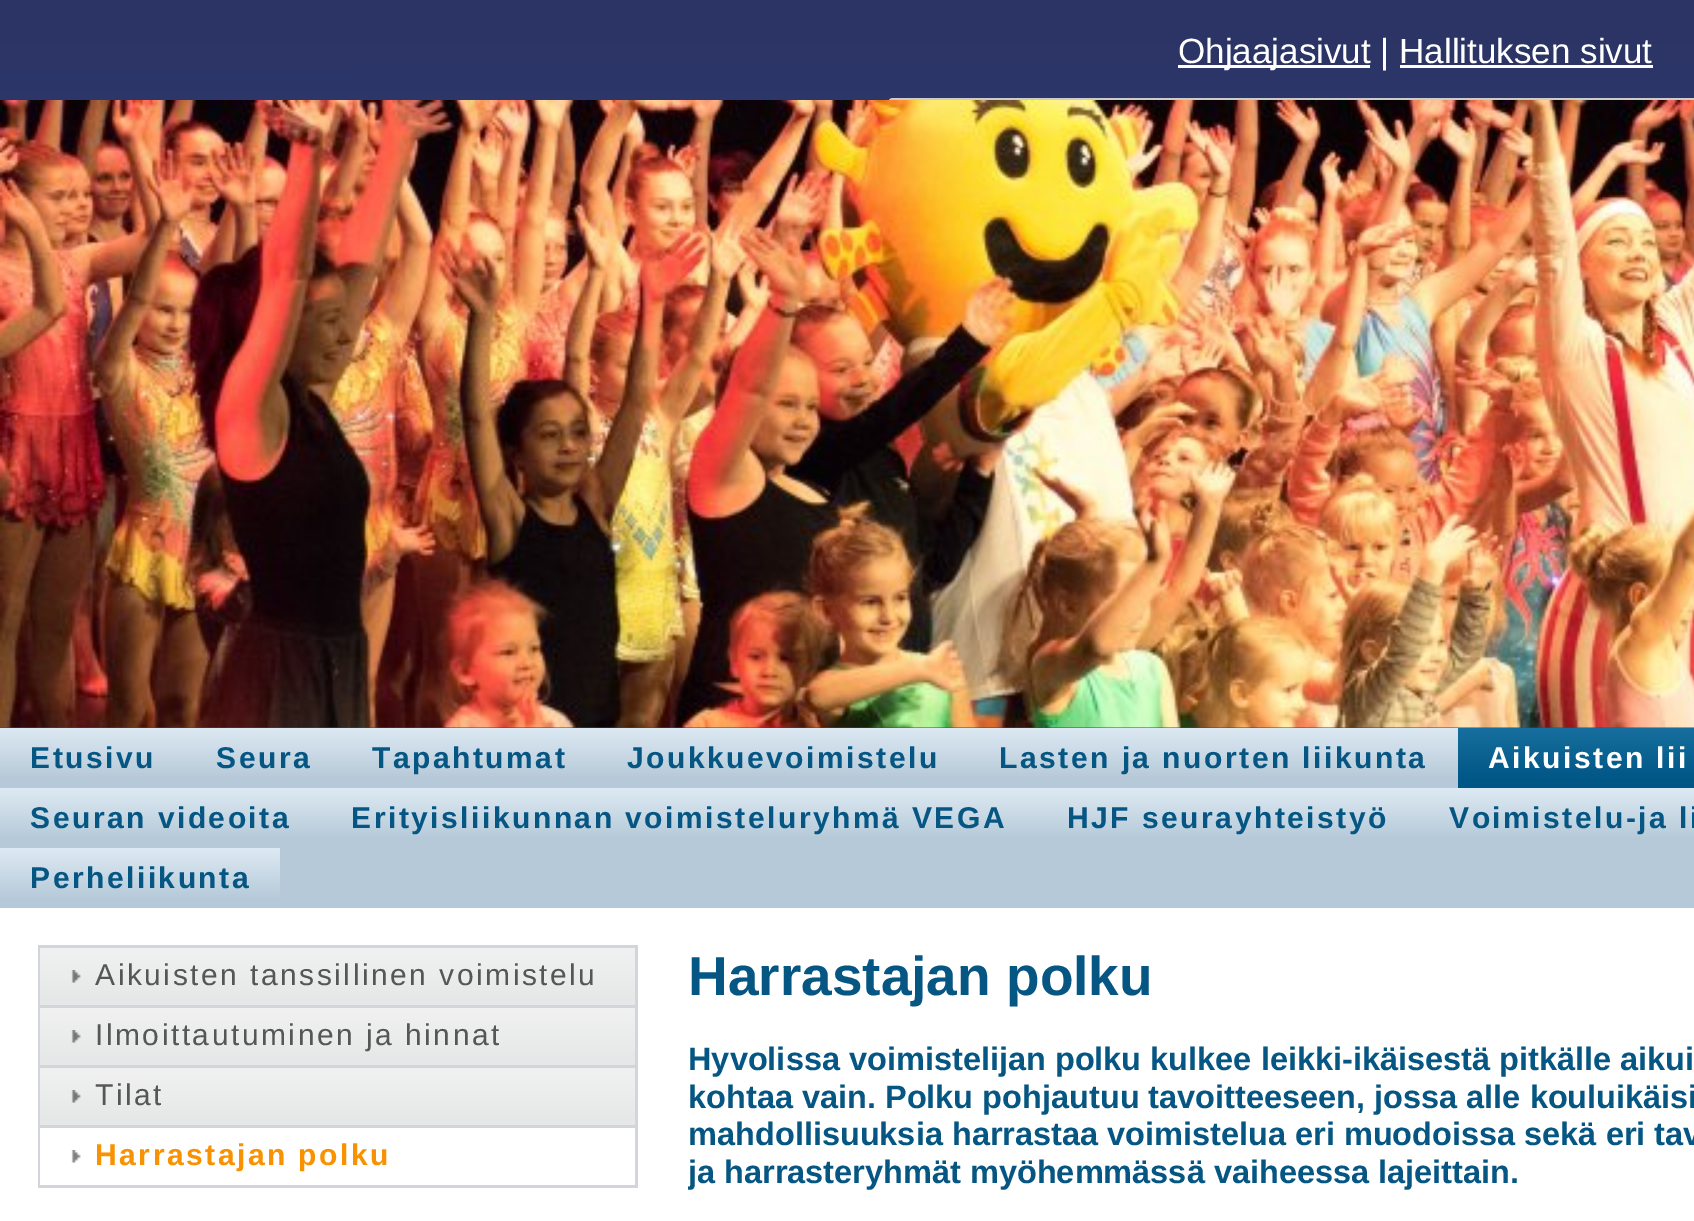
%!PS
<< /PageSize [1694 1221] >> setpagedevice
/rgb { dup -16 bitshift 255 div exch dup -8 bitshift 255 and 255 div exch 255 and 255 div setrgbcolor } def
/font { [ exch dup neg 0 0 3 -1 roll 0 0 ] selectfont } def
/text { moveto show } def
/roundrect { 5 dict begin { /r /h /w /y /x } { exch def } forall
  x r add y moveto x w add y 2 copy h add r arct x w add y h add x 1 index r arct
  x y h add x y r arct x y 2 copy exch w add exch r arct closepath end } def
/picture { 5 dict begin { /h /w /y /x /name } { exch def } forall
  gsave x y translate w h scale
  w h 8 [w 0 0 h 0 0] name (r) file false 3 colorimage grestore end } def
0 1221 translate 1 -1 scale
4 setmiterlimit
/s1 { /LiberationSans-Regular 35 font 16#FFFFFF rgb } def
/s2 { /LiberationSans-Bold 55 font 16#055683 rgb } def
/s3 { /LiberationSans-Bold 32.5 font 16#055683 rgb } def
16#FFFFFF rgb
0 0 1694 1221 rectfill
gsave 0 0 moveto 1694 0 lineto 1694 728 lineto 0 728 lineto closepath clip newpath
<< /ShadingType 2 /ColorSpace /DeviceRGB /Coords [847 0 848 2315] /Extend [true true] /Function << /FunctionType 3 /Domain [0 1] /Functions [<< /FunctionType 2 /Domain [0 1] /C0 [0.169 0.204 0.392] /C1 [0.255 0.306 0.588] /N 1 >> << /FunctionType 2 /Domain [0 1] /C0 [0.255 0.306 0.588] /C1 [0.255 0.306 0.588] /N 1 >>] /Bounds [0.49] /Encode [0 1 0 1] >> >> shfill grestore
1178 65 192 3 rectfill
s1
(Ohjaajasivut | Hallituksen sivut) 1178 63 text
1400 65 253 3 rectfill
16#CCCCCC rgb
3 setlinewidth
889.5 99.5 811 64 3.5 roundrect stroke
(pic1.raw) 0 100 1694 628 picture
gsave 0 728 moveto 1694 728 lineto 1694 908 lineto 0 908 lineto closepath clip newpath
<< /ShadingType 2 /ColorSpace /DeviceRGB /Coords [1213 727 1213 908] /Extend [true true] /Function << /FunctionType 3 /Domain [0 1] /Functions [<< /FunctionType 2 /Domain [0 1] /C0 [0.867 0.918 0.953] /C1 [0.714 0.788 0.847] /N 1 >> << /FunctionType 2 /Domain [0 1] /C0 [0.714 0.788 0.847] /C1 [0.714 0.788 0.847] /N 1 >>] /Bounds [0.29] /Encode [0 1 0 1] >> >> shfill grestore
/LiberationSans-Bold 30 font
16#055683 rgb
30 768 moveto 2.5 0 (Etusivu) ashow
216 768 moveto 2.5 0 (Seura) ashow
372 768 moveto 2.5 0 (Tapahtumat) ashow
627 768 moveto 2.5 0 (Joukkuevoimistelu) ashow
999 768 moveto 2.5 0 (Lasten ja nuorten liikunta) ashow
gsave 1458 728 moveto 1694 728 lineto 1694 788 lineto 1458 788 lineto closepath clip newpath
<< /ShadingType 2 /ColorSpace /DeviceRGB /Coords [1634 728 1634 788] /Extend [true true] /Function << /FunctionType 3 /Domain [0 1] /Functions [<< /FunctionType 2 /Domain [0 1] /C0 [0.09 0.435 0.624] /C1 [0 0.337 0.522] /N 1 >> << /FunctionType 2 /Domain [0 1] /C0 [0 0.337 0.522] /C1 [0 0.337 0.522] /N 1 >>] /Bounds [0.87] /Encode [0 1 0 1] >> >> shfill grestore
16#FFFFFF rgb
1488 768 moveto 2.5 0 (Aikuisten lii) ashow
gsave 0 788 moveto 320 788 lineto 320 837 lineto 0 837 lineto closepath clip newpath
<< /ShadingType 2 /ColorSpace /DeviceRGB /Coords [160 788 160 848] /Extend [true true] /Function << /FunctionType 3 /Domain [0 1] /Functions [<< /FunctionType 2 /Domain [0 1] /C0 [0.867 0.918 0.953] /C1 [0.714 0.788 0.847] /N 1 >> << /FunctionType 2 /Domain [0 1] /C0 [0.714 0.788 0.847] /C1 [0.714 0.788 0.847] /N 1 >>] /Bounds [0.87] /Encode [0 1 0 1] >> >> shfill grestore
16#055683 rgb
30 828 moveto 2.5 0 (Seuran videoita) ashow
gsave 320 788 moveto 1038 788 lineto 1038 837 lineto 320 837 lineto closepath clip newpath
<< /ShadingType 2 /ColorSpace /DeviceRGB /Coords [679 788 679 848] /Extend [true true] /Function << /FunctionType 3 /Domain [0 1] /Functions [<< /FunctionType 2 /Domain [0 1] /C0 [0.867 0.918 0.953] /C1 [0.714 0.788 0.847] /N 1 >> << /FunctionType 2 /Domain [0 1] /C0 [0.714 0.788 0.847] /C1 [0.714 0.788 0.847] /N 1 >>] /Bounds [0.87] /Encode [0 1 0 1] >> >> shfill grestore
351 828 moveto 2.5 0 (Erityisliikunnan voimisteluryhmä VEGA) ashow
gsave 1038 788 moveto 1420 788 lineto 1420 837 lineto 1038 837 lineto closepath clip newpath
<< /ShadingType 2 /ColorSpace /DeviceRGB /Coords [1229 788 1229 848] /Extend [true true] /Function << /FunctionType 3 /Domain [0 1] /Functions [<< /FunctionType 2 /Domain [0 1] /C0 [0.867 0.918 0.953] /C1 [0.714 0.788 0.847] /N 1 >> << /FunctionType 2 /Domain [0 1] /C0 [0.714 0.788 0.847] /C1 [0.714 0.788 0.847] /N 1 >>] /Bounds [0.87] /Encode [0 1 0 1] >> >> shfill grestore
1067 828 moveto 2.5 0 (HJF seurayhteistyö) ashow
gsave 1420 788 moveto 1694 788 lineto 1694 837 lineto 1420 837 lineto closepath clip newpath
<< /ShadingType 2 /ColorSpace /DeviceRGB /Coords [1660 788 1660 848] /Extend [true true] /Function << /FunctionType 3 /Domain [0 1] /Functions [<< /FunctionType 2 /Domain [0 1] /C0 [0.867 0.918 0.953] /C1 [0.714 0.788 0.847] /N 1 >> << /FunctionType 2 /Domain [0 1] /C0 [0.714 0.788 0.847] /C1 [0.714 0.788 0.847] /N 1 >>] /Bounds [0.87] /Encode [0 1 0 1] >> >> shfill grestore
1449 828 moveto 2.5 0 (Voimistelu-ja li) ashow
gsave 0 848 moveto 280 848 lineto 280 897 lineto 0 897 lineto closepath clip newpath
<< /ShadingType 2 /ColorSpace /DeviceRGB /Coords [140 848 140 908] /Extend [true true] /Function << /FunctionType 3 /Domain [0 1] /Functions [<< /FunctionType 2 /Domain [0 1] /C0 [0.867 0.918 0.953] /C1 [0.714 0.788 0.847] /N 1 >> << /FunctionType 2 /Domain [0 1] /C0 [0.714 0.788 0.847] /C1 [0.714 0.788 0.847] /N 1 >>] /Bounds [0.87] /Encode [0 1 0 1] >> >> shfill grestore
30 888 moveto 2.5 0 (Perheliikunta) ashow
16#D2D6DA rgb
38 945 600 3 rectfill
635 945 3 243 rectfill
38 945 3 243 rectfill
gsave 40 948 moveto 635 948 lineto 635 1005 lineto 40 1005 lineto closepath clip newpath
<< /ShadingType 2 /ColorSpace /DeviceRGB /Coords [338 948 338 1005] /Extend [true true] /Function << /FunctionType 3 /Domain [0 1] /Functions [<< /FunctionType 2 /Domain [0 1] /C0 [0.945 0.945 0.945] /C1 [0.902 0.906 0.906] /N 1 >> << /FunctionType 2 /Domain [0 1] /C0 [0.902 0.906 0.906] /C1 [0.902 0.906 0.906] /N 1 >>] /Bounds [0.91] /Encode [0 1 0 1] >> >> shfill grestore
40 1005 595 3 rectfill
(pic2.raw) 71 970 10 13 picture
/LiberationSans-Regular 30 font
16#565656 rgb
95 985 moveto 2.5 0 (Aikuisten tanssillinen voimistelu) ashow
gsave 40 1008 moveto 635 1008 lineto 635 1065 lineto 40 1065 lineto closepath clip newpath
<< /ShadingType 2 /ColorSpace /DeviceRGB /Coords [338 1008 338 1065] /Extend [true true] /Function << /FunctionType 3 /Domain [0 1] /Functions [<< /FunctionType 2 /Domain [0 1] /C0 [0.945 0.945 0.945] /C1 [0.902 0.906 0.906] /N 1 >> << /FunctionType 2 /Domain [0 1] /C0 [0.902 0.906 0.906] /C1 [0.902 0.906 0.906] /N 1 >>] /Bounds [0.91] /Encode [0 1 0 1] >> >> shfill grestore
16#D2D6DA rgb
40 1065 595 3 rectfill
(pic2.raw) 71 1030 10 13 picture
16#565656 rgb
95 1045 moveto 2.5 0 (Ilmoittautuminen ja hinnat) ashow
gsave 40 1068 moveto 635 1068 lineto 635 1125 lineto 40 1125 lineto closepath clip newpath
<< /ShadingType 2 /ColorSpace /DeviceRGB /Coords [338 1068 338 1125] /Extend [true true] /Function << /FunctionType 3 /Domain [0 1] /Functions [<< /FunctionType 2 /Domain [0 1] /C0 [0.945 0.945 0.945] /C1 [0.902 0.906 0.906] /N 1 >> << /FunctionType 2 /Domain [0 1] /C0 [0.902 0.906 0.906] /C1 [0.902 0.906 0.906] /N 1 >>] /Bounds [0.91] /Encode [0 1 0 1] >> >> shfill grestore
16#D2D6DA rgb
40 1125 595 3 rectfill
(pic2.raw) 71 1090 10 13 picture
16#565656 rgb
95 1105 moveto 2.5 0 (Tilat) ashow
16#FFFFFF rgb
40 1128 1 57 rectfill
16#D2D6DA rgb
40 1185 595 3 rectfill
(pic3.raw) 71 1150 10 13 picture
/LiberationSans-Bold 30 font
16#F99200 rgb
95 1165 moveto 2.5 0 (Harrastajan polku) ashow
s2
(Harrastajan polku) 688 995 text
s3
(Hyvolissa voimistelijan polku kulkee leikki-ikäisestä pitkälle aikui) 688 1070 text
(kohtaa vain. Polku pohjautuu tavoitteeseen, jossa alle kouluikäisi) 688 1108 text
(mahdollisuuksia harrastaa voimistelua eri muodoissa sekä eri tav) 688 1145 text
gsave
688 1040 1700 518 rectclip
(ja harrasteryhmät myöhemmässä vaiheessa lajeittain.) 688 1183 text
grestore
showpage
